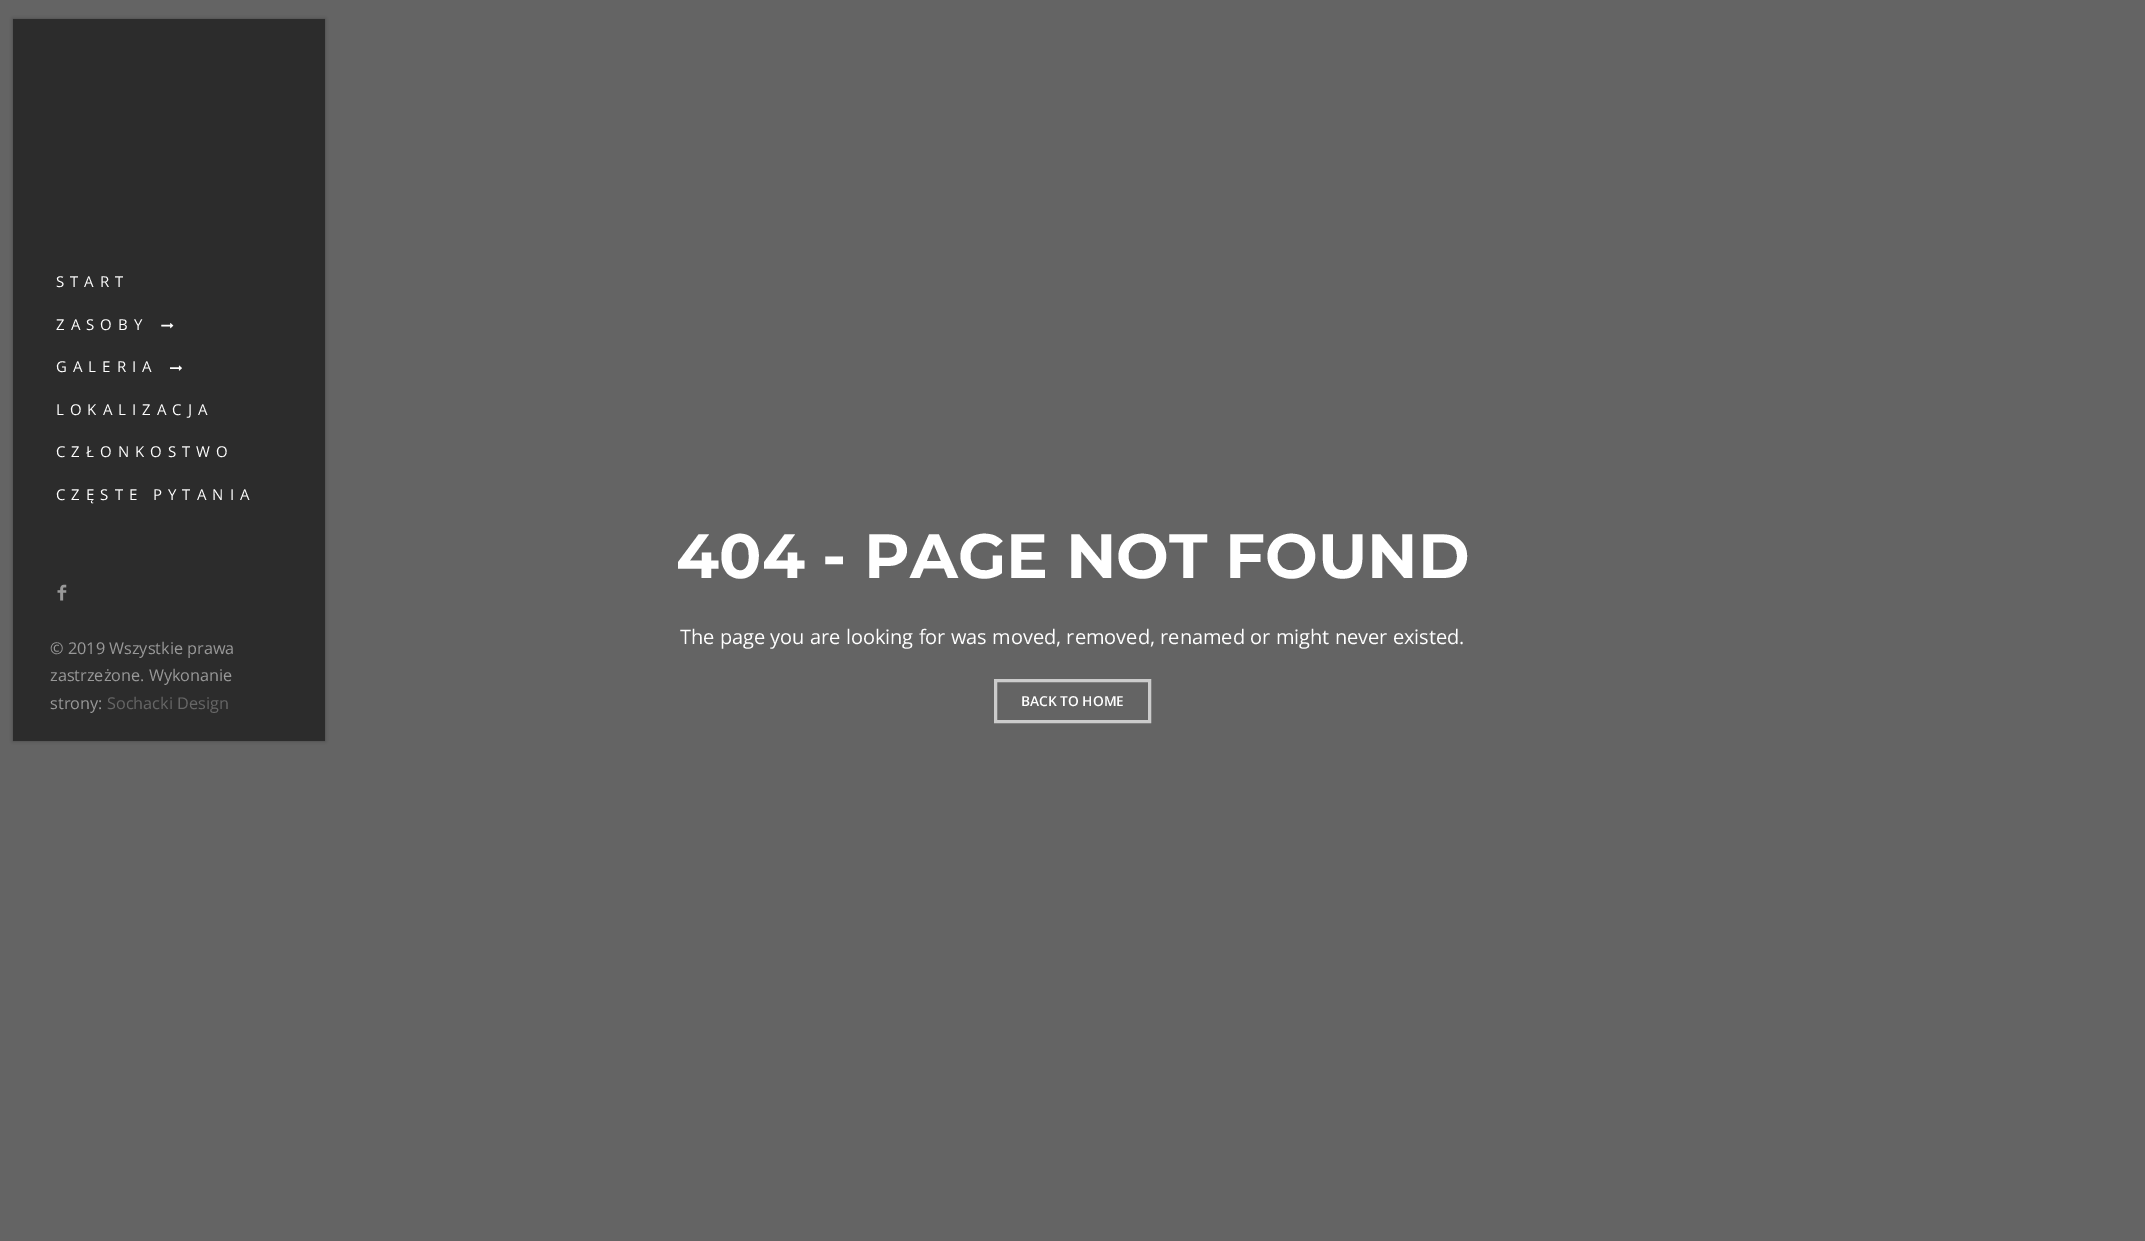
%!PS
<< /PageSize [2145 1241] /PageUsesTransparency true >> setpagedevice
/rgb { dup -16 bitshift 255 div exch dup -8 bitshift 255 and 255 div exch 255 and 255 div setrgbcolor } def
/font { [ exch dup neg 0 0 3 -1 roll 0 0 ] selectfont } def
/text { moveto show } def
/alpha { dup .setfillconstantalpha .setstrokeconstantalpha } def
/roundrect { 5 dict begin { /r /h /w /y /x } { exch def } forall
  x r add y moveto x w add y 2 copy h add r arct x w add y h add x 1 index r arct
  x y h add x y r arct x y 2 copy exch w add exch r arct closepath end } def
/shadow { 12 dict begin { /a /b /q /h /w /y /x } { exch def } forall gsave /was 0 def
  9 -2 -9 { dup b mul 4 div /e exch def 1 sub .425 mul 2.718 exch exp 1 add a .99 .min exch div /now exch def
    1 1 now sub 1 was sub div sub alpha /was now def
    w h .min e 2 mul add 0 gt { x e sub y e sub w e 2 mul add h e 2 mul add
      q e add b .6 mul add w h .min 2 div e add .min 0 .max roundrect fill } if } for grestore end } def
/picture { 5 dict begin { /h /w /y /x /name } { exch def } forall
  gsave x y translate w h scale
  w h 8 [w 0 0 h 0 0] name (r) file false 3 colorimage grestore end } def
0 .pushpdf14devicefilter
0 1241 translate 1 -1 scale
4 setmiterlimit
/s1 { /OpenSans-Regular 16.25 font 16#999999 rgb } def
/s2 { /OpenSans-Regular 16.25 font 16#666666 rgb } def
/s3 { /Montserrat-Bold 62.5 font 16#FFFFFF rgb } def
/s4 { /OpenSans-Regular 20 font 16#FFFFFF rgb } def
/s5 { /OpenSans-SemiBold 13.75 font 16#FFFFFF rgb } def
16#646464 rgb
0 0 2145 1241 rectfill
16#000000 rgb
13 19 312 722 0 2 0.3 shadow
16#2C2C2C rgb
13 19 312 722 rectfill
/OpenSans-Regular 15 font
16#FFFFFF rgb
56 287 moveto 6 0 (START) ashow
56 330 moveto 6 0 (ZASOBY) ashow
(pic1.raw) 161 323 13 6 picture
56 372 moveto 6 0 (GALERIA) ashow
(pic2.raw) 170 365 12 6 picture
56 415 moveto 6 0 (LOKALIZACJA) ashow
56 457 moveto 6 0 (CZŁONKOSTWO) ashow
56 500 moveto 6 0 (CZĘSTE PYTANIA) ashow
(pic3.raw) 57 584 10 17 picture
s1
(© 2019 Wszystkie prawa) 50 654 text
(zastrzeżone. Wykonanie) 50 681 text
(strony:) 50 709 text
s2
(Sochacki Design) 107 709 text
s3
(404 - PAGE NOT FOUND) 676 578 text
s4
(The page you are looking for was moved, removed, renamed or might never existed.) 680 644 text
16#CCCCCC rgb
3 setlinewidth
995.5 680.5 154 41 rectstroke
s5
(BACK TO HOME) 1021 706 text
.poppdf14devicefilter showpage
